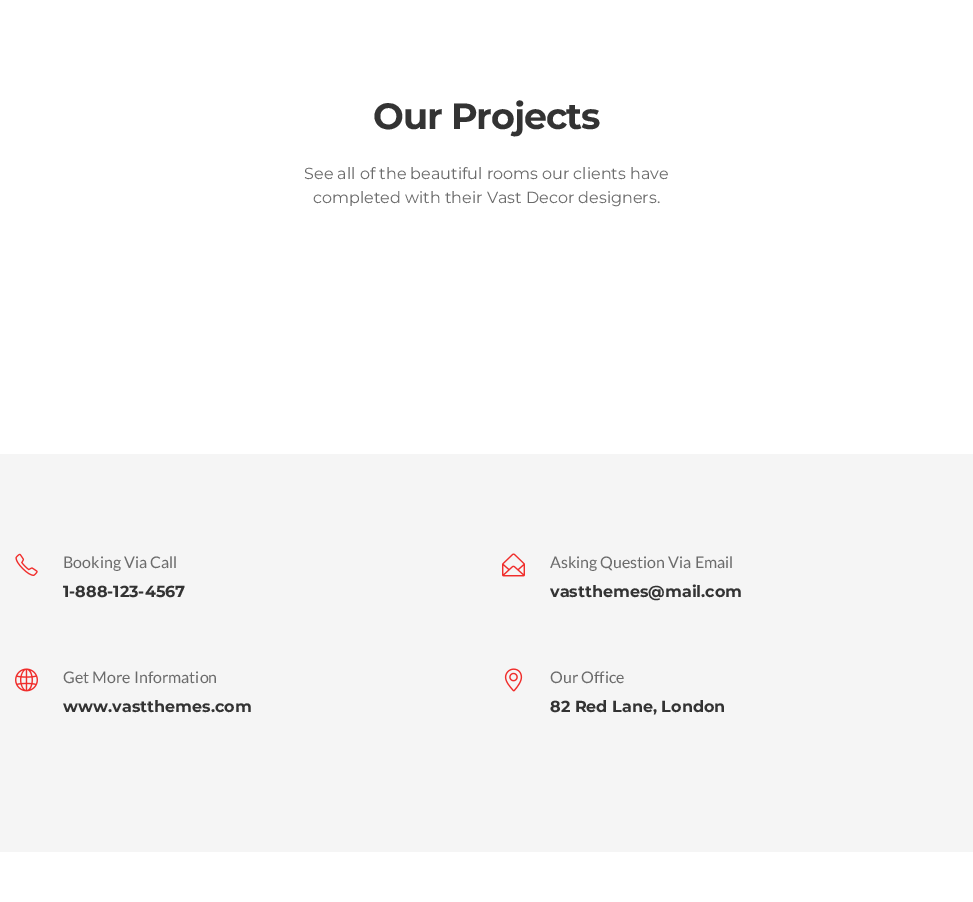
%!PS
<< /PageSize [973 902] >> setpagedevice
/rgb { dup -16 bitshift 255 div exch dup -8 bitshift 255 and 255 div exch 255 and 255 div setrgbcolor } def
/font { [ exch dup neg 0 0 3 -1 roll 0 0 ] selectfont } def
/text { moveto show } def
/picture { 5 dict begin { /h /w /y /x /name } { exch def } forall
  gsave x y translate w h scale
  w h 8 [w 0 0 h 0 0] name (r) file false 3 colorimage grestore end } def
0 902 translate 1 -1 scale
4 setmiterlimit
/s1 { /Montserrat-Regular 16 font 16#6B6B6B rgb } def
/s2 { /Lato-Regular 16 font 16#6B6B6B rgb } def
/s3 { /Montserrat-Bold 16 font 16#333333 rgb } def
16#FFFFFF rgb
0 0 973 902 rectfill
/Montserrat-Bold 36.5 font
16#333333 rgb
373 129 moveto -1.1 0 (Our Projects) ashow
s1
(See all of the beautiful rooms our clients have) 304 179 text
(completed with their Vast Decor designers.) 313 203 text
16#F5F5F5 rgb
0 454 973 398 rectfill
(pic1.raw) 15 553 23 23 picture
s2
(Booking Via Call) 63 568 text
s3
(1-888-123-4567) 63 597 text
(pic2.raw) 502 553 23 24 picture
s2
(Asking Question Via Email) 550 568 text
s3
(vastthemes@mail.com) 550 597 text
(pic3.raw) 15 668 23 24 picture
s2
(Get More Information) 63 683 text
s3
(www.vastthemes.com) 63 712 text
(pic4.raw) 504 668 19 24 picture
s2
(Our Office) 550 683 text
s3
(82 Red Lane, London) 550 712 text
showpage
